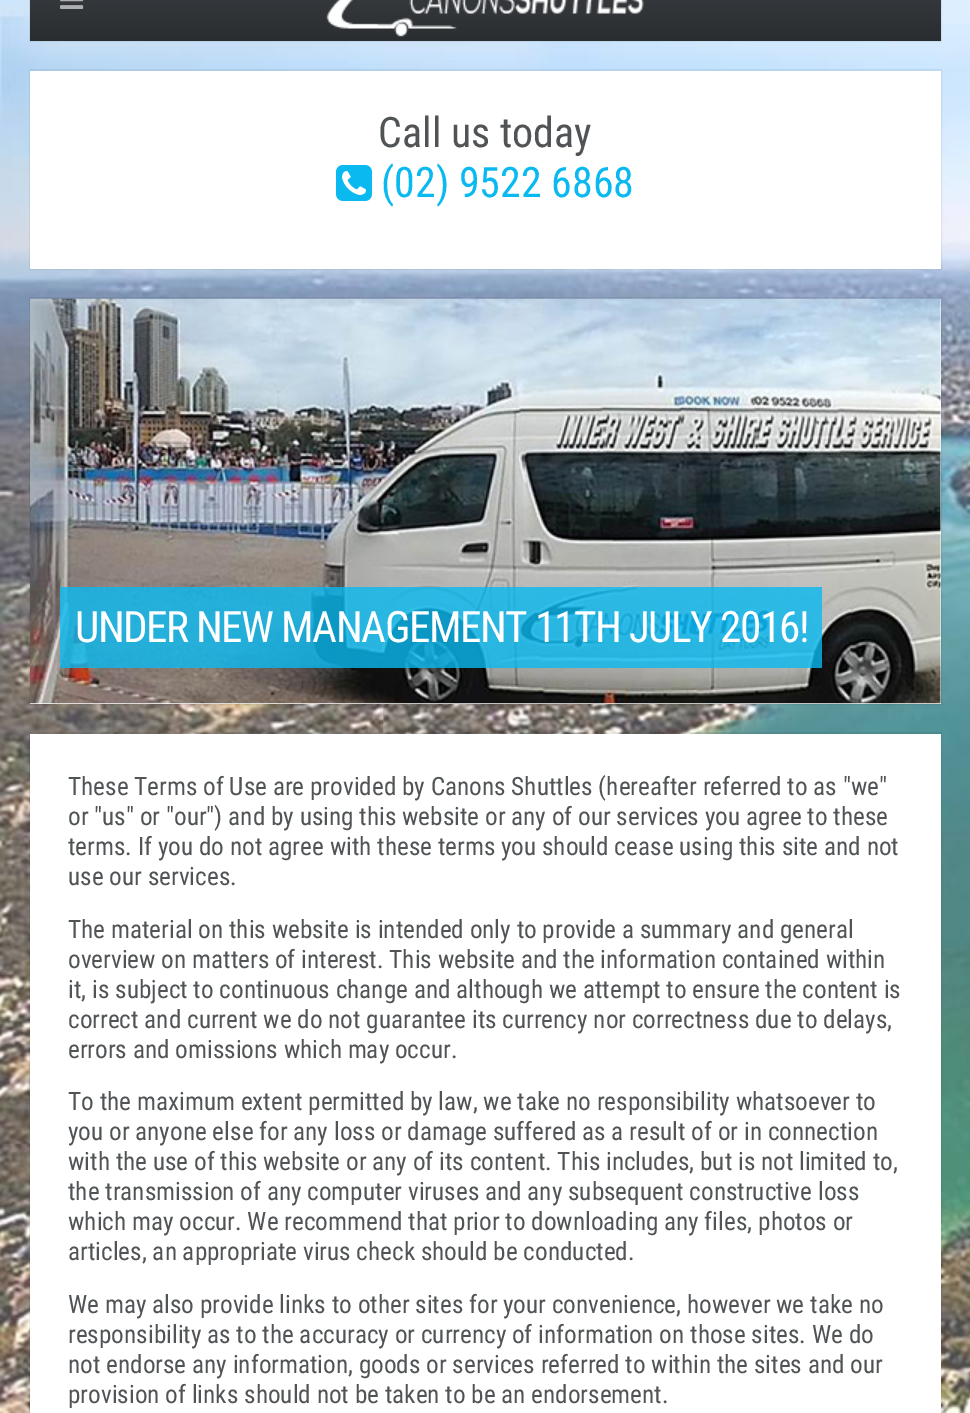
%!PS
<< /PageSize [970 1413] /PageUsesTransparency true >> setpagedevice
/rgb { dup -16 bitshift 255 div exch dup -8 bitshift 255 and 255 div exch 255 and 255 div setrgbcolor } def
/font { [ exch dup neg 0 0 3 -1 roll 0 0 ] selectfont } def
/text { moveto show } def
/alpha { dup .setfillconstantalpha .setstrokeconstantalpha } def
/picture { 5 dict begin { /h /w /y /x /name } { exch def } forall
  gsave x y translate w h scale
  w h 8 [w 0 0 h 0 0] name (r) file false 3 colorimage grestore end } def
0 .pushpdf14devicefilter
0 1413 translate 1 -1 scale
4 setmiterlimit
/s1 { /RobotoCondensed-Regular 42 font 16#515456 rgb } def
/s2 { /RobotoCondensed-Regular 42 font 16#09B9F0 rgb } def
/s3 { /RobotoCondensed-Regular 25.2 font 16#515456 rgb } def
16#FFFFFF rgb
0 0 970 1413 rectfill
(pic1.raw) 0 0 970 1413 picture
0.06 alpha
16#000000 rgb
2 setlinewidth
30 -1 911 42 rectstroke
1 alpha
gsave 30 0 moveto 941 0 lineto 941 41 lineto 30 41 lineto closepath clip newpath
<< /ShadingType 2 /ColorSpace /DeviceRGB /Coords [485 -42 485 41] /Extend [true true] /Function << /FunctionType 2 /Domain [0 1] /C0 [0.247 0.259 0.275] /C1 [0.165 0.176 0.188] /N 1 >> >> shfill grestore
(pic2.raw) 60 0 24 9 picture
(pic3.raw) 326 0 318 37 picture
0.06 alpha
30 70 911 199 rectstroke
1 alpha
16#FFFFFF rgb
30 71 911 198 rectfill
s1
(Call us today) 378 147 text
(pic4.raw) 336 165 36 36 picture
s2
(\(02\) 9522 6868) 381 197 text
0.06 alpha
16#000000 rgb
30 298 911 406 rectstroke
1 alpha
16#FFFFFF rgb
30 299 911 405 rectfill
(pic5.raw) 30 298 911 406 picture
0.8 alpha
16#09B9F0 rgb
60 587 762 81 rectfill
/RobotoCondensed-Regular 43.25 font
1 alpha
16#FFFFFF rgb
75 642 moveto -1.5 0 (UNDER NEW MANAGEMENT 11TH JULY 2016!) ashow
0.06 alpha
16#000000 rgb
30 733 911 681 rectstroke
1 alpha
16#FFFFFF rgb
30 734 911 679 rectfill
s3
(These Terms of Use are provided by Canons Shuttles \(hereafter referred to as "we") 68 795 text
(or "us" or "our"\) and by using this website or any of our services you agree to these) 68 825 text
(terms. If you do not agree with these terms you should cease using this site and not) 68 855 text
(use our services.) 68 885 text
(The material on this website is intended only to provide a summary and general) 68 938 text
(overview on matters of interest. This website and the information contained within) 68 968 text
(it, is subject to continuous change and although we attempt to ensure the content is) 68 998 text
(correct and current we do not guarantee its currency nor correctness due to delays,) 68 1028 text
(errors and omissions which may occur.) 68 1058 text
(To the maximum extent permitted by law, we take no responsibility whatsoever to) 68 1110 text
(you or anyone else for any loss or damage suffered as a result of or in connection) 68 1140 text
(with the use of this website or any of its content. This includes, but is not limited to,) 68 1170 text
(the transmission of any computer viruses and any subsequent constructive loss) 68 1200 text
(which may occur. We recommend that prior to downloading any files, photos or) 68 1230 text
(articles, an appropriate virus check should be conducted.) 68 1260 text
(We may also provide links to other sites for your convenience, however we take no) 68 1313 text
(responsibility as to the accuracy or currency of information on those sites. We do) 68 1343 text
(not endorse any information, goods or services referred to within the sites and our) 68 1373 text
(provision of links should not be taken to be an endorsement.) 68 1403 text
.poppdf14devicefilter showpage
